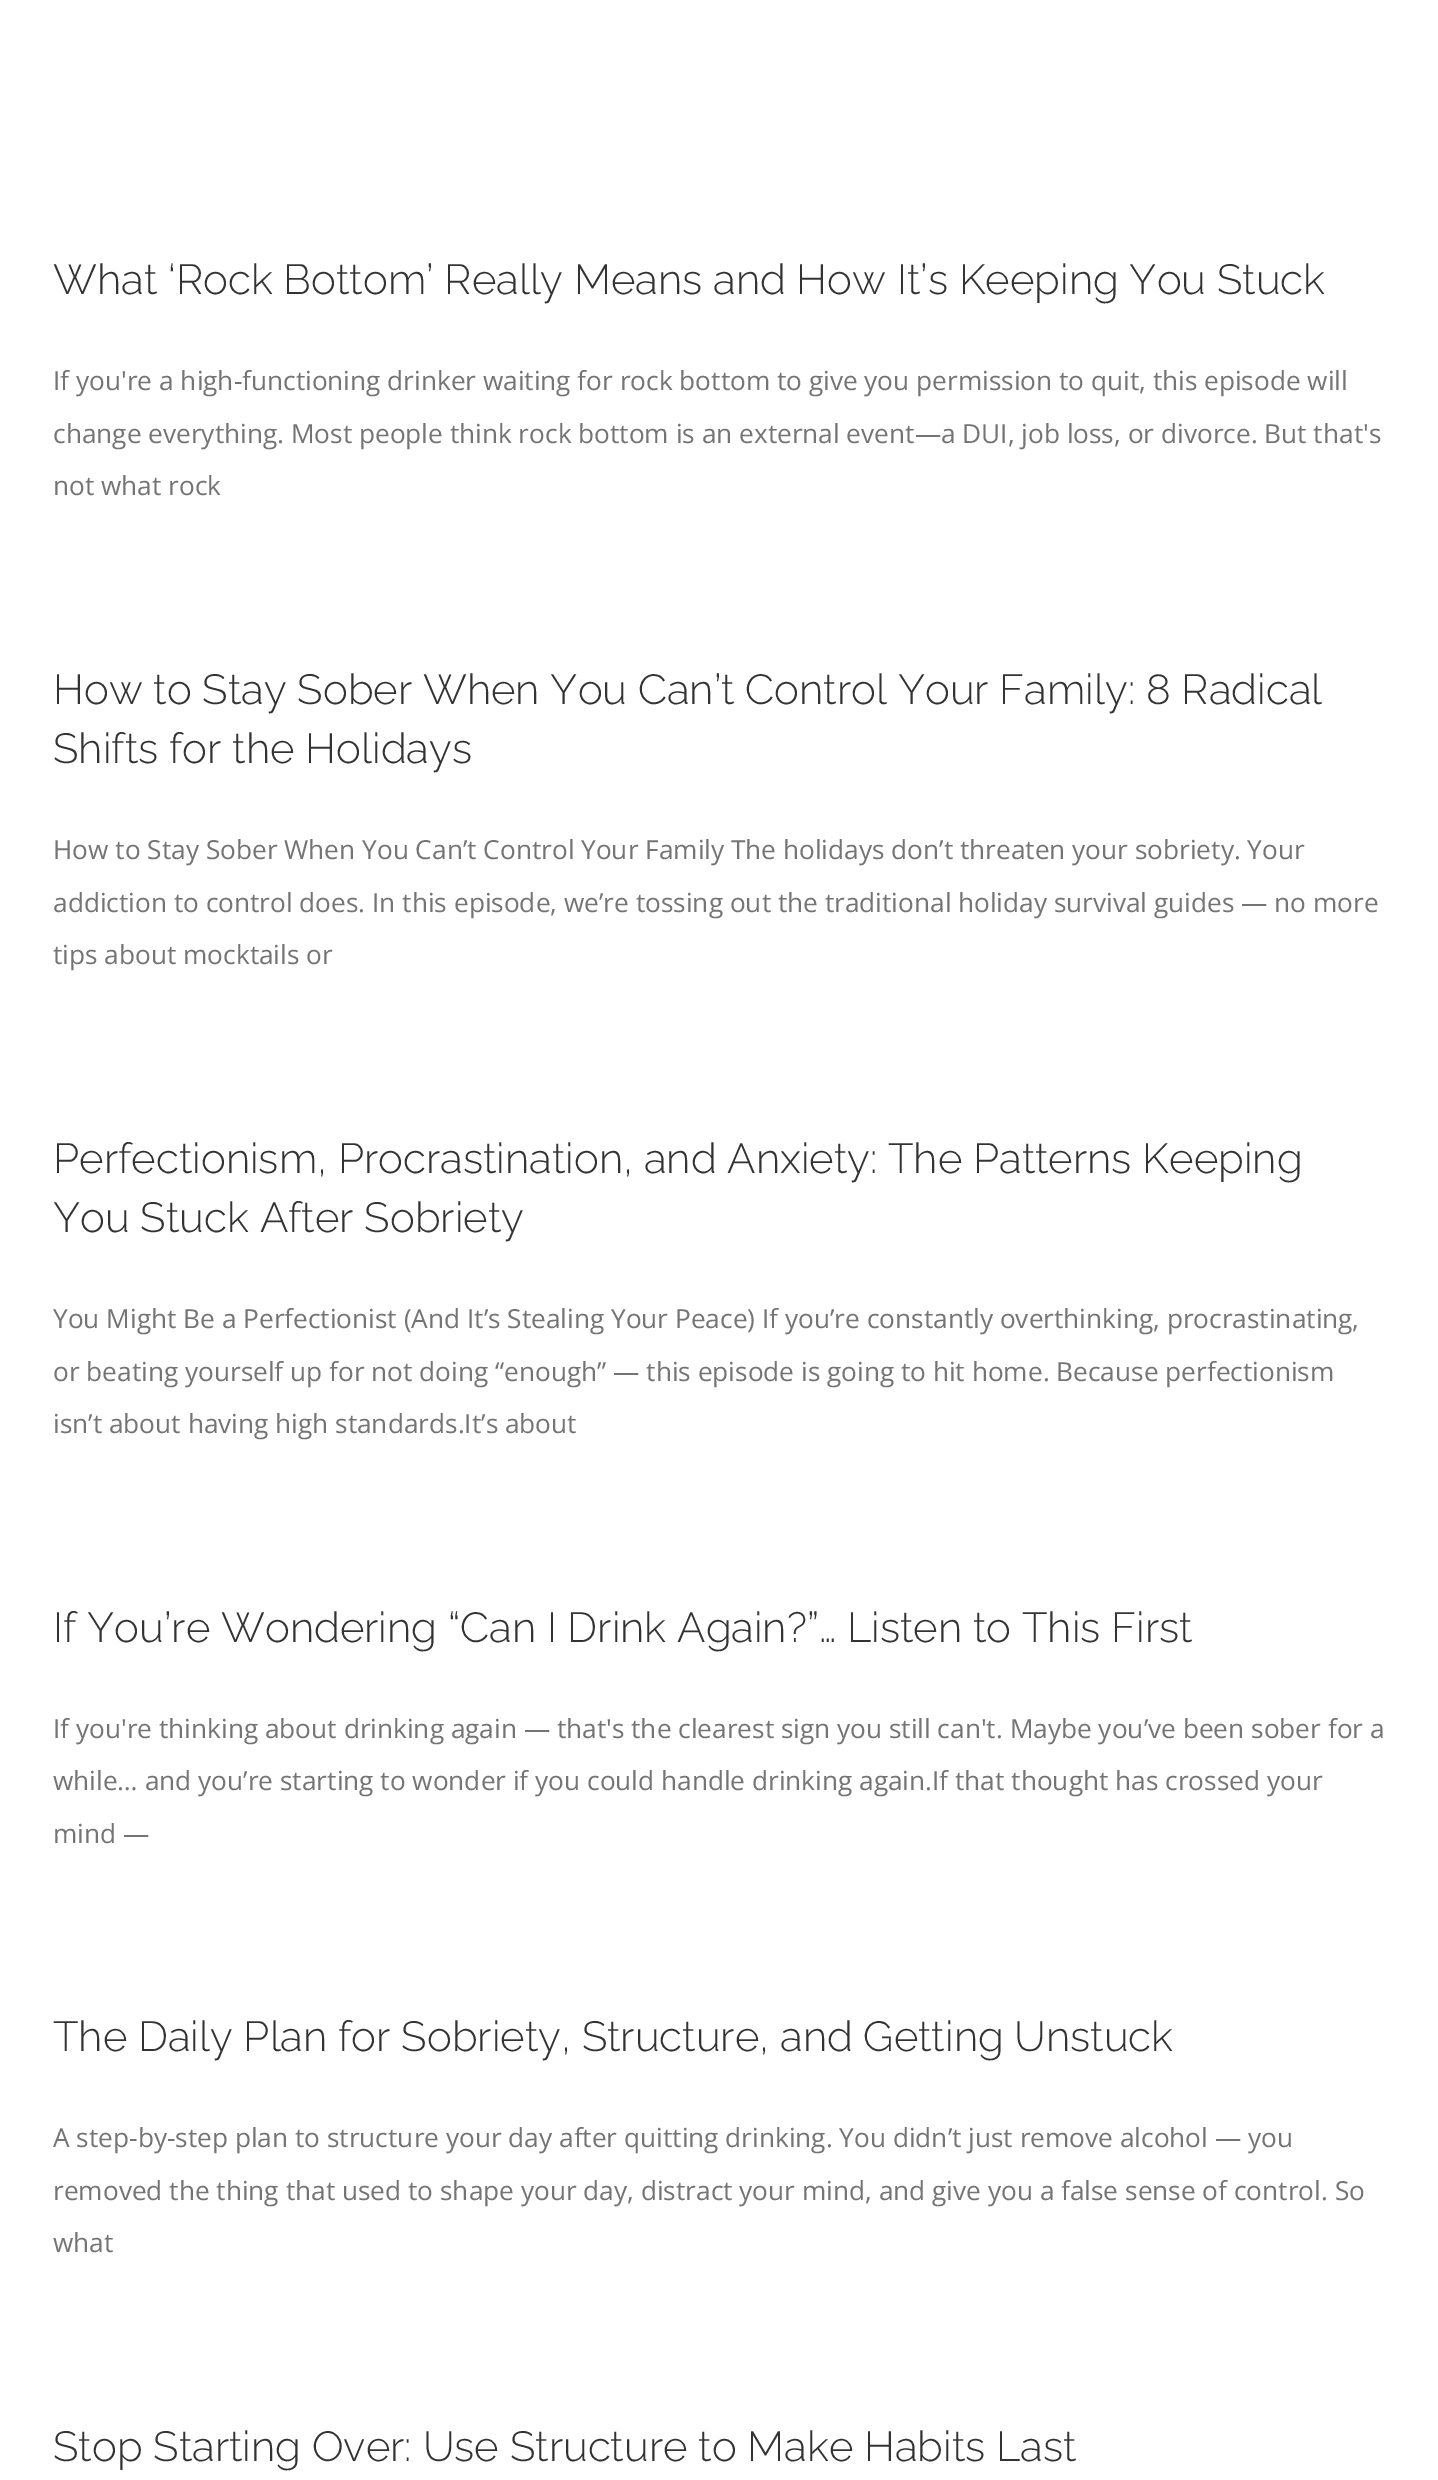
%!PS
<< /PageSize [1438 2480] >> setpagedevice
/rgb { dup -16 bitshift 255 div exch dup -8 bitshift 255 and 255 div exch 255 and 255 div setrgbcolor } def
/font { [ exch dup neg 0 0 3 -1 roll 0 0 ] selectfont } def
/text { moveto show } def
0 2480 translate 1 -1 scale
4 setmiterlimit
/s1 { /Raleway-Light 42 font 16#333333 rgb } def
/s2 { /OpenSans-Regular 26.25 font 16#747474 rgb } def
16#FFFFFF rgb
0 0 1438 2480 rectfill
s1
(What ‘Rock Bottom’ Really Means and How It’s Keeping You Stuck) 53 294 text
s2
(If you're a high-functioning drinker waiting for rock bottom to give you permission to quit, this episode will) 53 390 text
(change everything. Most people think rock bottom is an external event—a DUI, job loss, or divorce. But that's) 53 443 text
(not what rock) 53 495 text
s1
(How to Stay Sober When You Can’t Control Your Family: 8 Radical) 53 704 text
(Shifts for the Holidays) 53 763 text
s2
(How to Stay Sober When You Can’t Control Your Family The holidays don’t threaten your sobriety. Your) 53 859 text
(addiction to control does. In this episode, we’re tossing out the traditional holiday survival guides — no more) 53 912 text
(tips about mocktails or) 53 964 text
s1
(Perfectionism, Procrastination, and Anxiety: The Patterns Keeping) 53 1173 text
(You Stuck After Sobriety) 53 1232 text
s2
(You Might Be a Perfectionist \(And It’s Stealing Your Peace\) If you’re constantly overthinking, procrastinating,) 53 1328 text
(or beating yourself up for not doing “enough” — this episode is going to hit home. Because perfectionism) 53 1381 text
(isn’t about having high standards.It’s about) 53 1433 text
s1
(If You’re Wondering “Can I Drink Again?”… Listen to This First) 53 1642 text
s2
(If you're thinking about drinking again — that's the clearest sign you still can't. Maybe you’ve been sober for a) 53 1738 text
(while… and you’re starting to wonder if you could handle drinking again.If that thought has crossed your) 53 1790 text
(mind —) 53 1843 text
s1
(The Daily Plan for Sobriety, Structure, and Getting Unstuck) 53 2051 text
s2
(A step-by-step plan to structure your day after quitting drinking. You didn’t just remove alcohol — you) 53 2147 text
(removed the thing that used to shape your day, distract your mind, and give you a false sense of control. So) 53 2200 text
(what) 53 2252 text
s1
(Stop Starting Over: Use Structure to Make Habits Last) 53 2461 text
showpage
